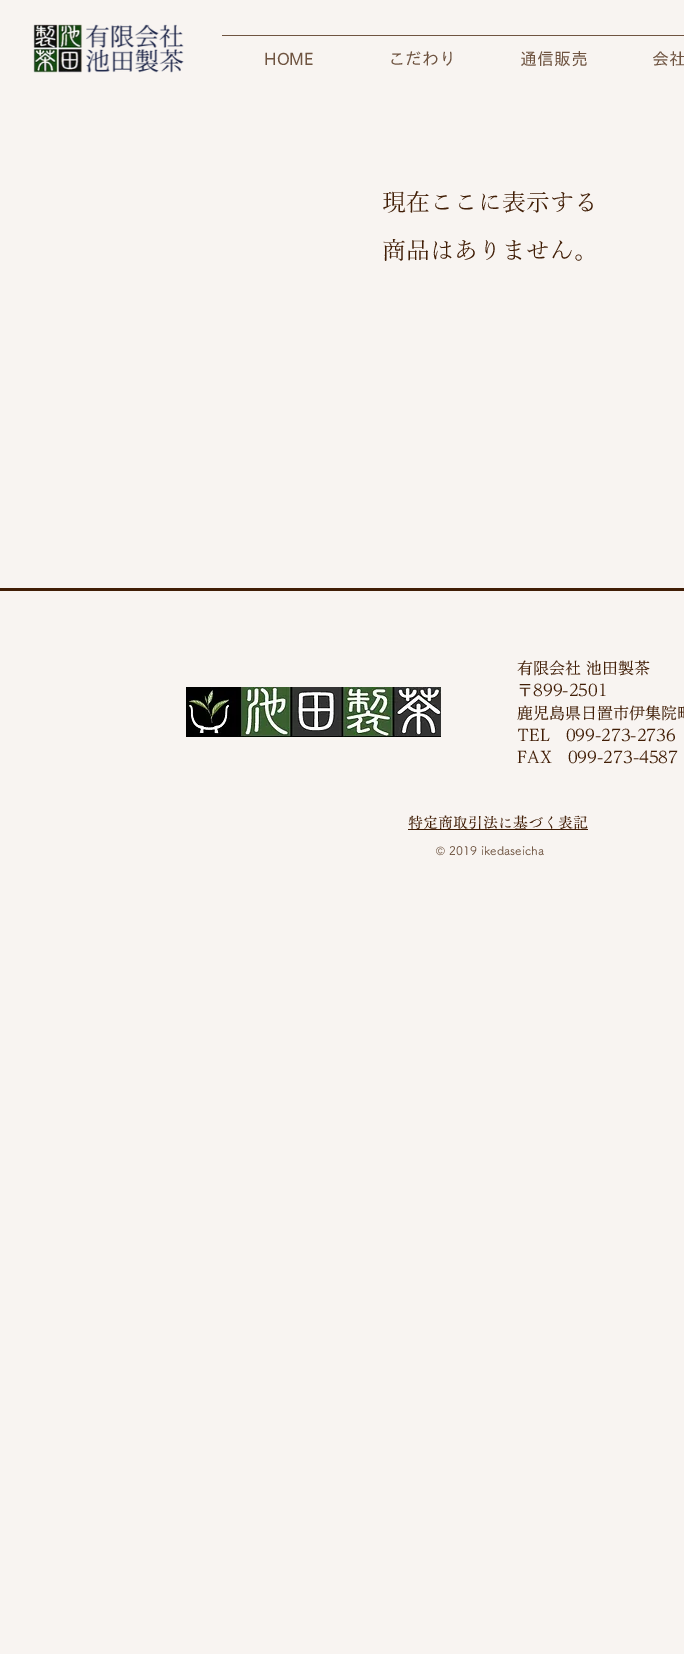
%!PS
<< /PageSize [684 1654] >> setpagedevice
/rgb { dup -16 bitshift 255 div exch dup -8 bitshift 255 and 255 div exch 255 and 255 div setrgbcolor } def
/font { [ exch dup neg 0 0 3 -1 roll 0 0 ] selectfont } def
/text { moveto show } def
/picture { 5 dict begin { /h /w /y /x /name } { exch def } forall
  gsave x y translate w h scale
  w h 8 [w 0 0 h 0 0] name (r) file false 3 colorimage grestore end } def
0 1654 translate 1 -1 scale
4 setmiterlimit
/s1 { /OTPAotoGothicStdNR-Regular 17 font 16#6F5441 rgb } def
/s2 { /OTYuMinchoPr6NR-Regular 24 font 16#411E06 rgb } def
/s3 { /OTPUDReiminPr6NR-Regular 16 font 16#411E06 rgb } def
/s4 { /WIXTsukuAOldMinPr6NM-Medium 15 font 16#411E06 rgb } def
/s5 { /LiberationSans-Regular 12 font 16#6F5441 rgb } def
/s6 { /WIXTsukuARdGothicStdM-Medium 12 font 16#6F5441 rgb } def
16#F8F4F1 rgb
0 0 684 1654 rectfill
(pic1.raw) 33 24 151 49 picture
16#6F5441 rgb
222 35 462 1 rectfill
s1
(HOME) 264 65 text
(こだわり) 388 65 text
(通信販売) 520 65 text
(会社) 652 65 text
s2
(現在ここに表示する) 382 211 text
(商品はありません。) 382 259 text
0 588 684 3 rectfill
(pic2.raw) 186 687 255 50 picture
s3
(有限会社 池田製茶) 517 674 text
(〒899-2501) 517 696 text
(鹿児島県日置市伊集院町) 517 719 text
(TEL   099-273-2736) 517 741 text
(FAX　099-273-4587) 517 763 text
408 829 180 1 rectfill
s4
(特定商取引法に基づく表記) 408 828 text
s5
(©) 436 855 text
s6
(2019 ikedaseicha) 449 855 text
showpage
